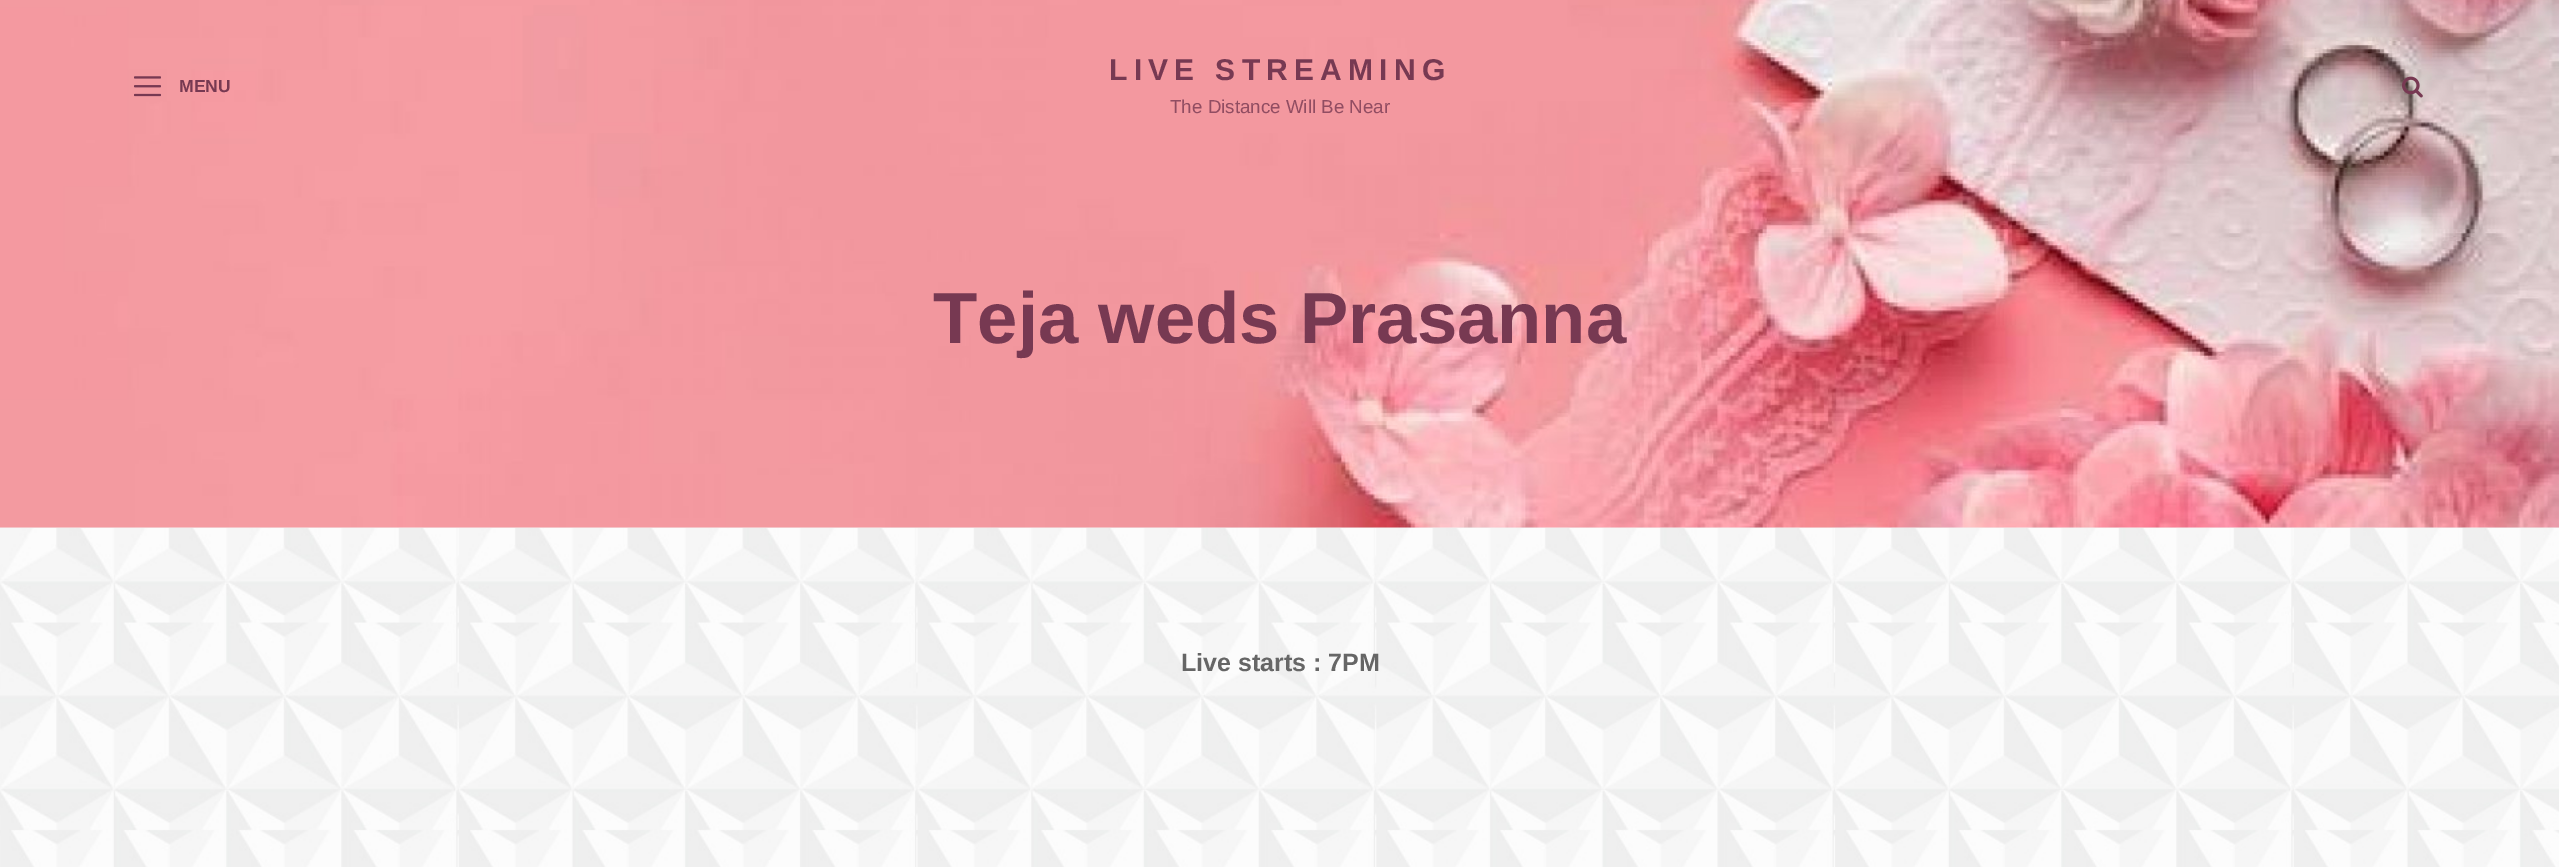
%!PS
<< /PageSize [2559 867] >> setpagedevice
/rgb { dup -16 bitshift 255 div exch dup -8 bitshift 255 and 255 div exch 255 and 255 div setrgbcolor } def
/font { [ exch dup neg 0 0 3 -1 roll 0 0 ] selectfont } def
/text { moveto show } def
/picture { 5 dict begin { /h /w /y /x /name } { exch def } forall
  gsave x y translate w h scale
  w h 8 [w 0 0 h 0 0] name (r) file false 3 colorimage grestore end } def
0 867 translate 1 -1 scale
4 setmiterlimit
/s1 { /LiberationSans-Bold 17.5 font 16#773952 rgb } def
/s2 { /LiberationSans-Regular 18.75 font 16#914D62 rgb } def
/s3 { /LiberationSans-Bold 72.5 font 16#773952 rgb } def
/s4 { /LiberationSans-Bold 25 font 16#666666 rgb } def
16#FFFFFF rgb
0 0 2559 867 rectfill
(pic1.raw) 0 528 2559 339 picture
16#F2F2F2 rgb
0 527 2559 1 rectfill
(pic4.raw) 0 0 2559 528 picture
(pic2.raw) 134 76 27 21 picture
s1
(MENU) 179 92 text
/LiberationSans-Bold 30 font
1109 80 moveto 6.25 0 (LIVE STREAMING) ashow
s2
(The Distance Will Be Near) 1170 113 text
(pic3.raw) 2402 76 21 22 picture
s3
(Teja weds Prasanna) 933 343 text
s4
(Live starts : 7PM) 1181 671 text
showpage
